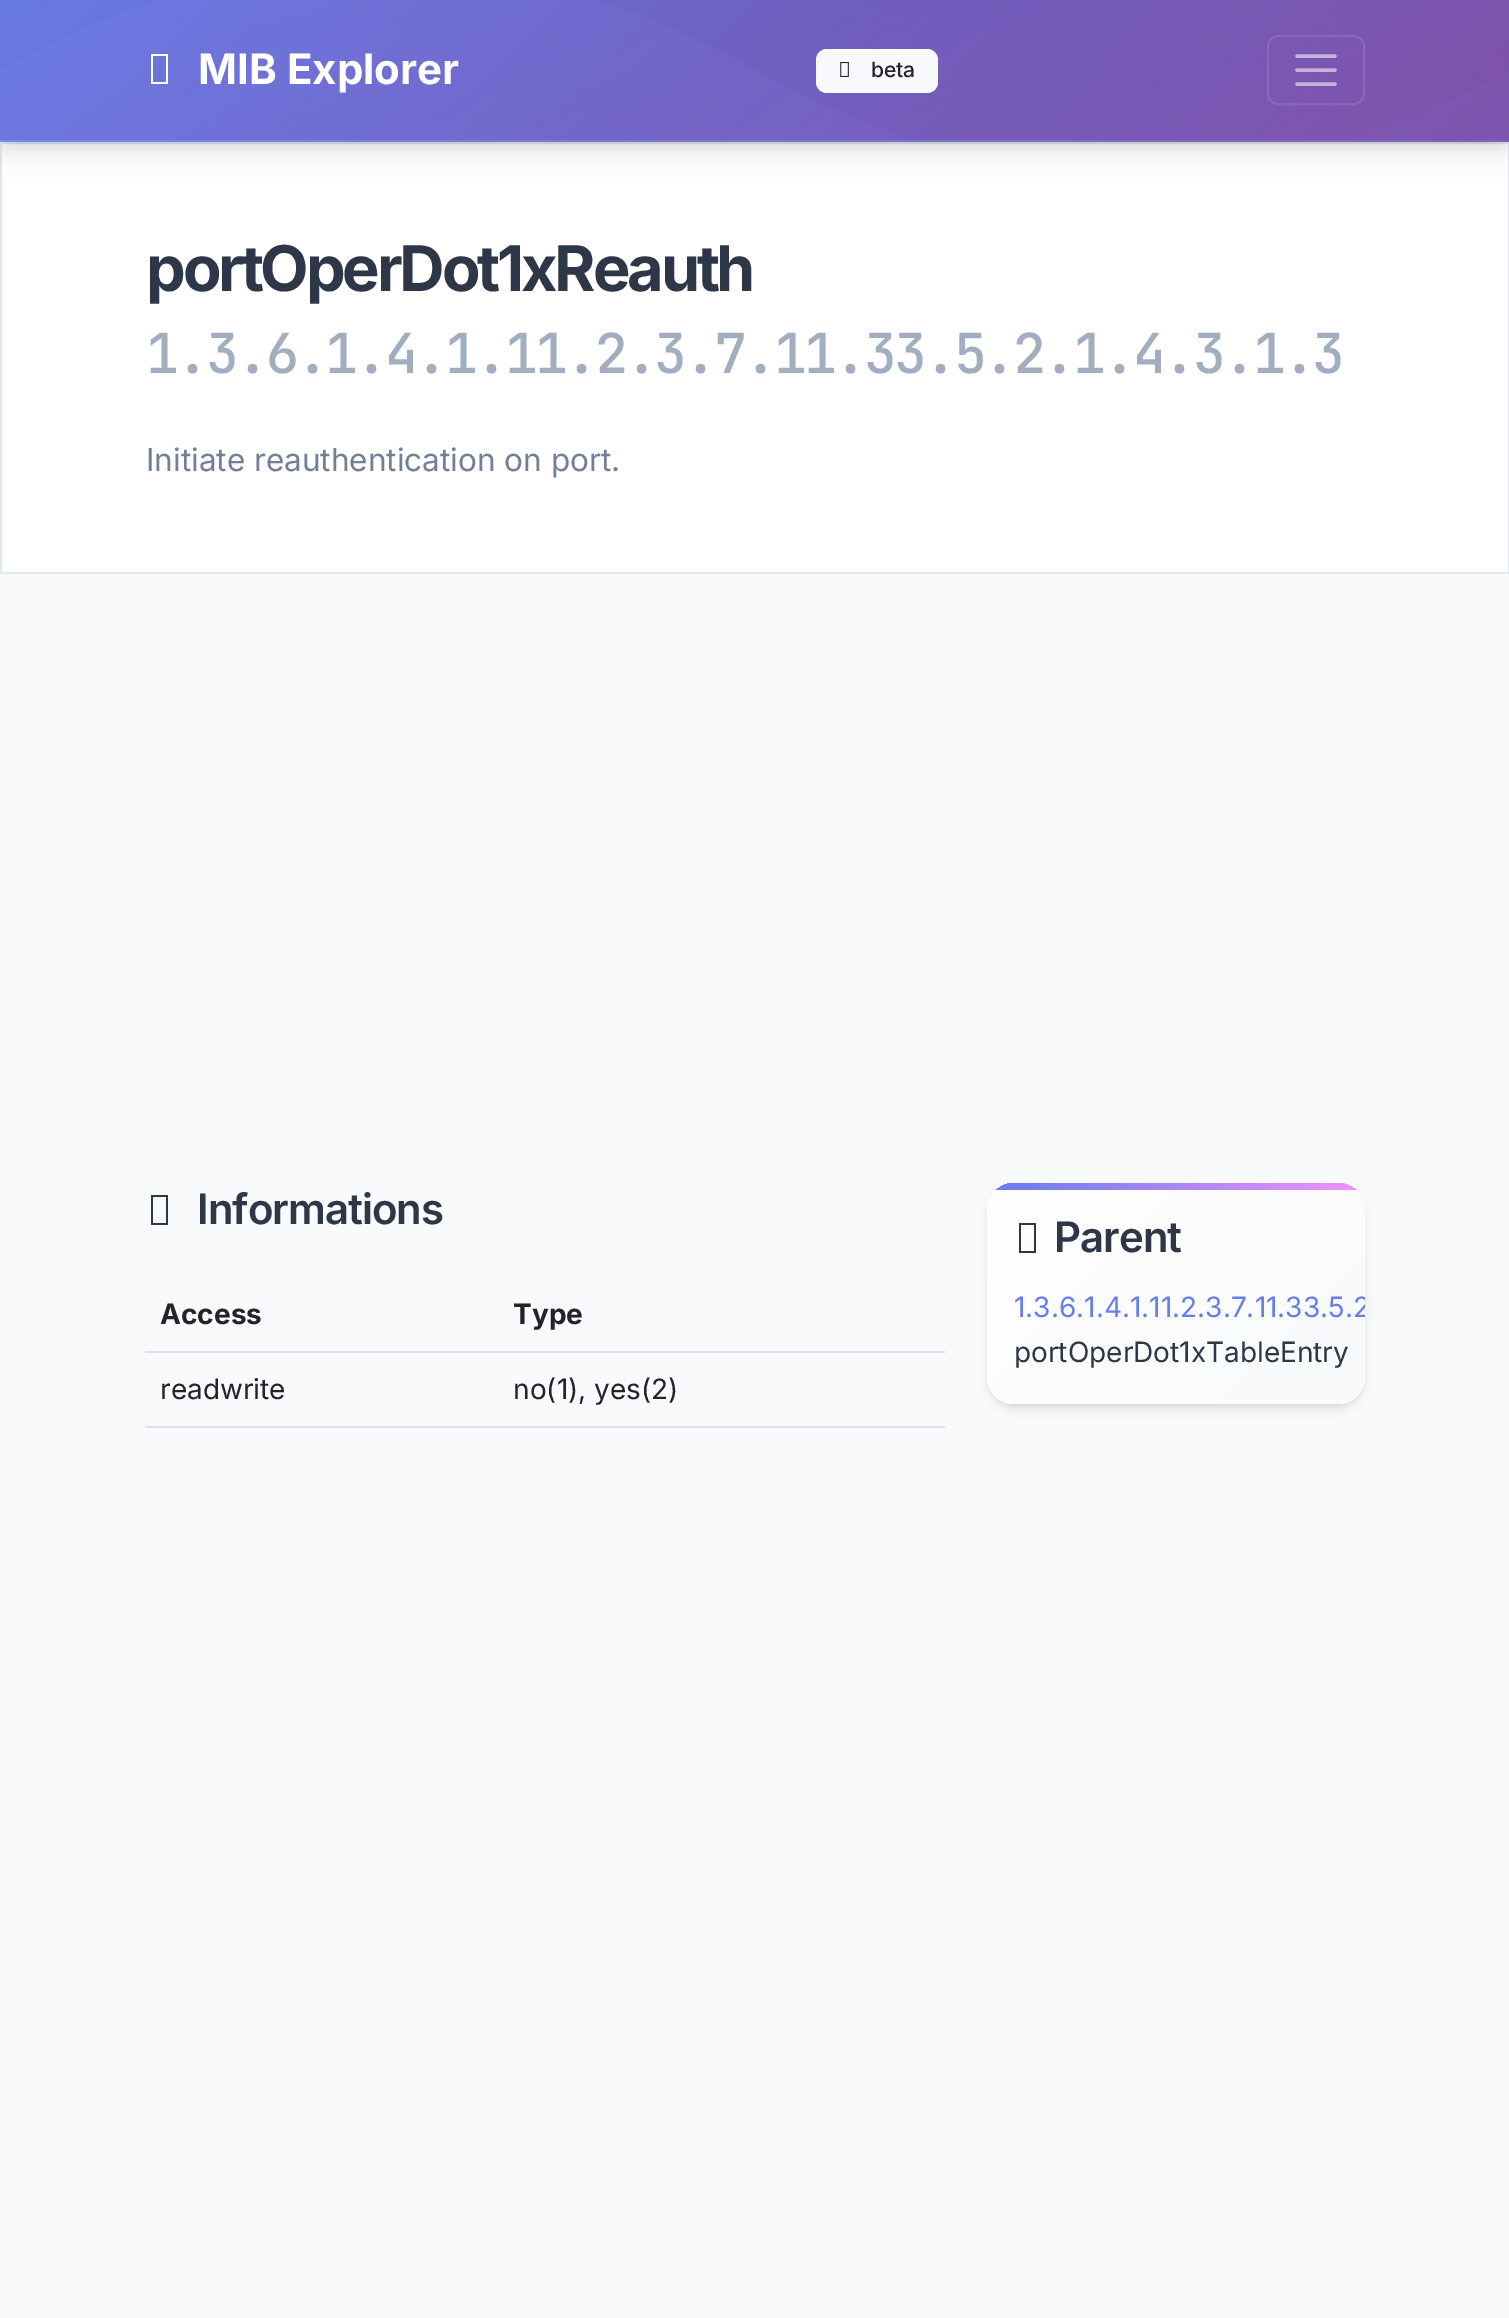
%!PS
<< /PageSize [1509 2318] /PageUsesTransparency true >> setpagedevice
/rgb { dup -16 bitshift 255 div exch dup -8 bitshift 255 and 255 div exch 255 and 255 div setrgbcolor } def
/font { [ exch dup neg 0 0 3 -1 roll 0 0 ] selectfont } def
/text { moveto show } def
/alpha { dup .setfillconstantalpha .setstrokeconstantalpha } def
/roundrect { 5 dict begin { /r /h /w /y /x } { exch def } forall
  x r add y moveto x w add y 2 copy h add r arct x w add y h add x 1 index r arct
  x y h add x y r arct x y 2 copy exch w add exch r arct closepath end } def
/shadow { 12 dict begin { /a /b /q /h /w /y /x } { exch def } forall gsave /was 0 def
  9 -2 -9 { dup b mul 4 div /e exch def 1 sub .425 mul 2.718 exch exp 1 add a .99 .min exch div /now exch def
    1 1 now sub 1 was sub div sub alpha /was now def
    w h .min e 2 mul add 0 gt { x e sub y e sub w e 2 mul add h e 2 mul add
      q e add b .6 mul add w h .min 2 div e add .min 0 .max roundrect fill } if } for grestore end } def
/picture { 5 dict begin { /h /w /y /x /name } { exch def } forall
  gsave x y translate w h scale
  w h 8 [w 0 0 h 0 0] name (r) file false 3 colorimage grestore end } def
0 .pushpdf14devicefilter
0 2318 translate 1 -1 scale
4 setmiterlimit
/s1 { /Inter-Bold 42 font 16#FFFFFF rgb } def
/s2 { /Inter-Medium 21 font 16#212529 rgb } def
/s3 { /Inter-Regular 31.5 font 16#718096 rgb } def
/s4 { /Inter-Bold 28 font 16#212529 rgb } def
/s5 { /Inter-Regular 28 font 16#212529 rgb } def
/s6 { /Inter-Regular 28 font 16#667EEA rgb } def
/s7 { /Inter-Regular 28 font 16#2D3748 rgb } def
16#F8FAFC rgb
0 0 1509 2318 rectfill
16#FFFFFF rgb
1 143 moveto 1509 143 lineto 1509 573 lineto 1 573 lineto closepath gsave fill grestore
16#E2E8F0 rgb
2 setlinewidth
stroke
16#000000 rgb
4 11 1503 134 0 5 0.05 shadow
5 23 1500 131 0 13 0.1 shadow
gsave 0 0 moveto 1509 0 lineto 1509 140 lineto 0 140 lineto closepath clip newpath
<< /ShadingType 2 /ColorSpace /DeviceRGB /Coords [343 -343 1168 483] /Extend [true true] /Function << /FunctionType 2 /Domain [0 1] /C0 [0.4 0.494 0.918] /C1 [0.463 0.294 0.635] /N 1 >> >> shfill grestore
gsave 0 140 moveto 1509 140 lineto 1509 142 lineto 0 142 lineto closepath clip newpath
<< /ShadingType 2 /ColorSpace /DeviceRGB /Coords [343 -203 1168 623] /Extend [true true] /Function << /FunctionType 2 /Domain [0 1] /C0 [0.4 0.494 0.918] /C1 [0.463 0.294 0.635] /N 1 >> >> shfill grestore
0.1 alpha
16#FFFFFF rgb
0 140 1509 2 rectfill
1 alpha
(pic1.raw) 0 0 1509 140 picture
151 84 moveto 151 54 lineto 168 54 lineto 168 84 lineto closepath 153 82 moveto 166 82 lineto 166 56 lineto 153 56 lineto closepath fill
s1
(MIB Explorer) 198 84 text
16#F8F9FA rgb
816 49 122 44 11 roundrect fill
(pic2.raw) 840 62 9 15 picture
s2
(beta) 871 77 text
0.1 alpha
16#FFFFFF rgb
1268 36 96 68 10 roundrect stroke
1 alpha
16#C4B3DC rgb
3.5 setlinewidth
1 setlinecap
1297 56 moveto 1335 56 lineto 1297 70 moveto 1335 70 lineto 1297 84 moveto 1335 84 lineto stroke
/Inter-Bold 63 font
16#2D3748 rgb
146 291 moveto -3.15 0 (portOperDot1xReauth) ashow
/JetBrainsMono-Medium 55.1 font
16#A0AEC0 rgb
146 373 moveto -3.15 0 (1.3.6.1.4.1.11.2.3.7.11.33.5.2.1.4.3.1.3) ashow
s3
(Initiate reauthentication on port.) 146 471 text
16#2D3748 rgb
151 1225 moveto 151 1195 lineto 168 1195 lineto 168 1225 lineto closepath 153 1223 moveto 166 1223 lineto 166 1197 lineto 153 1197 lineto closepath fill
/Inter-SemiBold 42 font
197 1224 moveto -1 0 (Informations) ashow
s4
(Access) 160 1324 text
16#DEE2E6 rgb
145 1351 800 2 rectfill
s4
(Type) 513 1324 text
s5
(readwrite) 160 1399 text
16#DEE2E6 rgb
145 1426 800 2 rectfill
s5
(no\(1\), yes\(2\)) 513 1399 text
16#000000 rgb
989 1188 374 217 26 3.5 0.06 shadow
989 1192 374 217 26 5 0.1 shadow
gsave 987 1183 378 221 28 roundrect clip newpath
<< /ShadingType 2 /ColorSpace /DeviceRGB /Coords [1026 1144 1326 1443] /Extend [true true] /Function << /FunctionType 2 /Domain [0 1] /C0 [1 1 1] /C1 [0.973 0.98 0.988] /N 1 >> >> shfill grestore
gsave
987 1183 378 221 28 roundrect clip newpath
gsave 996 1183 moveto 1356 1183 lineto 1356 1190 lineto 996 1190 lineto closepath clip newpath
<< /ShadingType 2 /ColorSpace /DeviceRGB /Coords [987 1187 1365 1187] /Extend [true true] /Function << /FunctionType 2 /Domain [0 1] /C0 [0.4 0.494 0.918] /C1 [0.941 0.576 0.984] /N 1 >> >> shfill grestore
grestore
16#2D3748 rgb
1019 1253 moveto 1019 1223 lineto 1036 1223 lineto 1036 1253 lineto closepath 1021 1251 moveto 1034 1251 lineto 1034 1225 lineto 1021 1225 lineto closepath fill
/Inter-SemiBold 42 font
1054 1252 moveto -1 0 (Parent) ashow
gsave
987 1183 378 221 28 roundrect clip newpath
s6
(1.3.6.1.4.1.11.2.3.7.11.33.5.2) 1014 1317 text
grestore
s7
(portOperDot1xTableEntry) 1014 1362 text
.poppdf14devicefilter showpage
